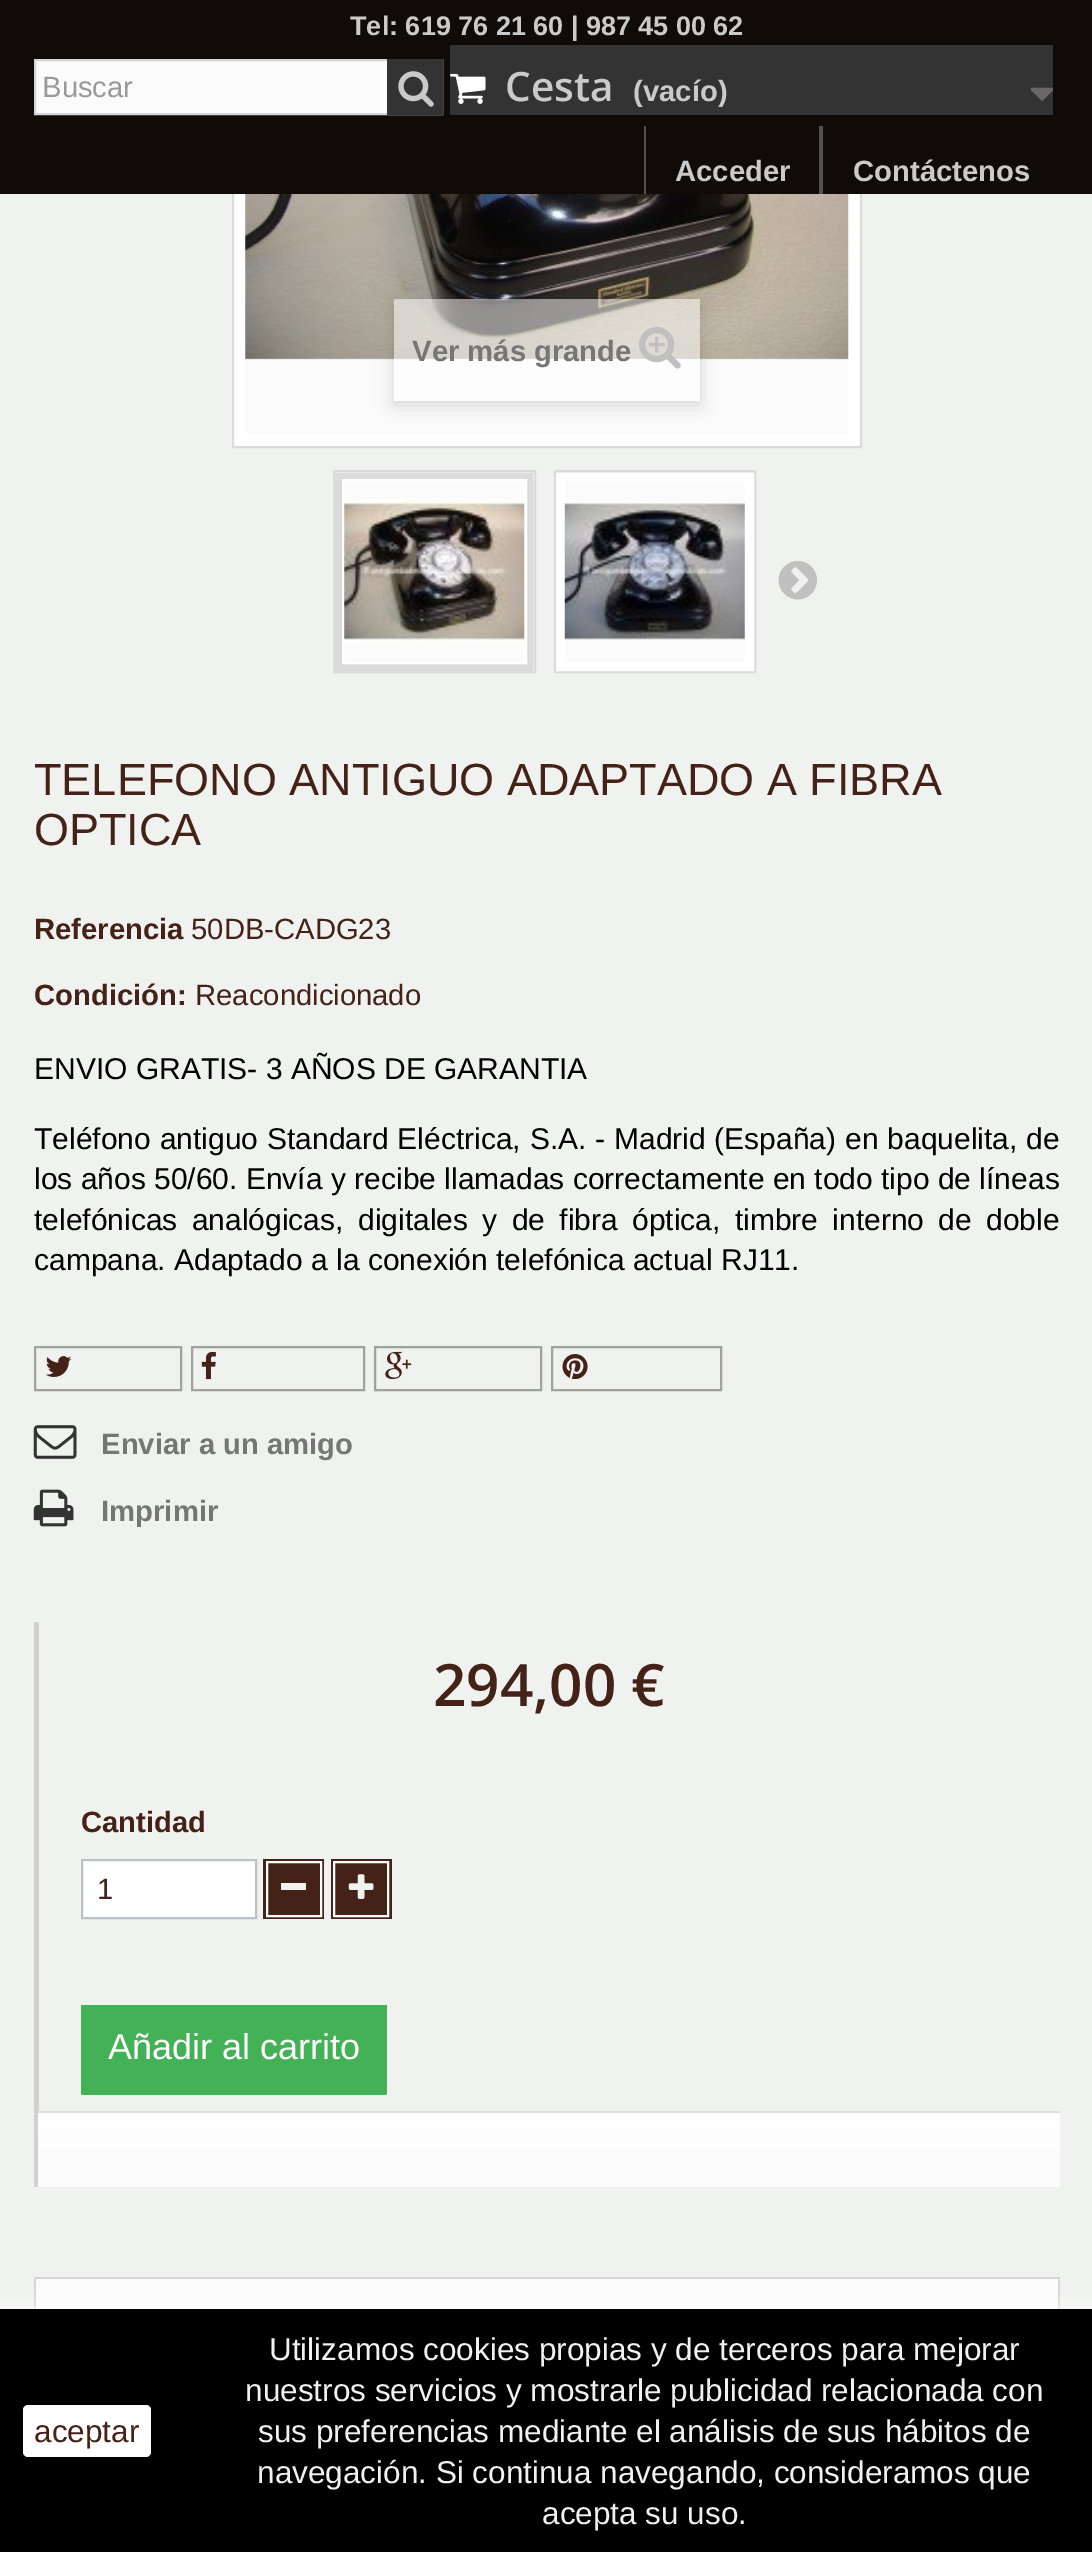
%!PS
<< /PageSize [1092 2552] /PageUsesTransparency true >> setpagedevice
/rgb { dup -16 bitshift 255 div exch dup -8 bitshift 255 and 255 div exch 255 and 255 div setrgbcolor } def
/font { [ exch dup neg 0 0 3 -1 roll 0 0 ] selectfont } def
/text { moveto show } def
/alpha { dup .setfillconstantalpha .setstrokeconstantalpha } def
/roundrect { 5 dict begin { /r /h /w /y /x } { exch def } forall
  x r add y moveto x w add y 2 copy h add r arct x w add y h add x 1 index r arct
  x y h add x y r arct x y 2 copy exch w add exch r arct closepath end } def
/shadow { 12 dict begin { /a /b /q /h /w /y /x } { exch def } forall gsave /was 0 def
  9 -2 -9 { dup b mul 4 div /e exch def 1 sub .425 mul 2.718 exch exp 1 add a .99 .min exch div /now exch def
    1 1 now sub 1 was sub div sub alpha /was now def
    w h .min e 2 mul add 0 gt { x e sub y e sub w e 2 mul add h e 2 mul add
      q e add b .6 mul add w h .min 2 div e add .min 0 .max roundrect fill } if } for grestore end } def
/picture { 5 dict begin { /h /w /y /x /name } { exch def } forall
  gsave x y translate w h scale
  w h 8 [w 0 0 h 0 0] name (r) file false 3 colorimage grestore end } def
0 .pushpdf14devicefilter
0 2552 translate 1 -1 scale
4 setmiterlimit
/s1 { /LiberationSans-Bold 27 font 16#CACACA rgb } def
/s2 { /LiberationSans-Regular 29.25 font 16#999999 rgb } def
/s3 { /OpenSans-SemiBold 40.5 font 16#CACACA rgb } def
/s4 { /LiberationSans-Bold 29.25 font 16#CACACA rgb } def
/s5 { /LiberationSans-Bold 29.25 font 16#777676 rgb } def
/s6 { /LiberationSans-Regular 45 font 16#442218 rgb } def
/s7 { /LiberationSans-Bold 29.25 font 16#442218 rgb } def
/s8 { /LiberationSans-Regular 29.25 font 16#442218 rgb } def
/s9 { /LiberationSans-Regular 30 font 16#000000 rgb } def
/s10 { /OpenSans-SemiBold 58.5 font 16#442218 rgb } def
/s11 { /LiberationSans-Regular 36 font 16#FFFFFF rgb } def
/s12 { /LiberationSans-Regular 31.5 font 16#442218 rgb } def
/s13 { /LiberationSans-Regular 31.5 font 16#F0F2EF rgb } def
16#F0F2EF rgb
0 0 1092 2552 rectfill
16#FFFFFF rgb
234 194 626 252 rectfill
16#DBDBDB rgb
2 setlinewidth
233 -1 628 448 rectstroke
16#100B06 rgb
0 0 1092 194 rectfill
s1
(Tel: 619 76 21 60 | 987 45 00 62) 350 35 text
16#FBFBFB rgb
36 61 351 52 rectfill
16#D6D4D4 rgb
35 60 407 54 rectstroke
s2
(Buscar) 42 97 text
16#333333 rgb
387 59 56 56 rectfill
(pic1.raw) 398 71 36 36 picture
450 45 603 70 rectfill
(pic2.raw) 450 73 36 31 picture
s3
(Cesta) 505 101 text
s4
(\(vacío\)) 633 101 text
(pic3.raw) 1030 87 23 14 picture
16#515151 rgb
644 126 2 68 rectfill
s4
(Acceder) 675 181 text
16#515151 rgb
819 126 4 68 rectfill
s4
(Contáctenos) 853 181 text
16#FBFBFB rgb
245 194 603 240 rectfill
(pic4.raw) 245 194 604 166 picture
gsave
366 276 moveto 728 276 lineto 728 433 lineto 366 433 lineto closepath 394 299 moveto 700 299 lineto 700 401 lineto 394 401 lineto closepath eoclip newpath
16#000000 rgb
394 304 306 101 0 9 0.16 shadow
grestore
0.5 alpha
16#FFFFFF rgb
394 299 306 102 rectfill
1 alpha
s5
(Ver más grande) 412 361 text
(pic5.raw) 639 327 42 42 picture
16#DBDBDB rgb
334 471 201 201 rectstroke
16#FBFBFB rgb
344 481 181 181 rectfill
16#DBDBDB rgb
7 setlinewidth
338.5 476.5 191 191 rectstroke
16#FFFFFF rgb
2 setlinewidth
343 480 183 183 rectstroke
(pic6.raw) 344 499 181 144 picture
16#DBDBDB rgb
555 471 200 201 rectstroke
16#FBFBFB rgb
565 481 180 181 rectfill
16#FFFFFF rgb
7 setlinewidth
559.5 476.5 191 191 rectstroke
2 setlinewidth
564 480 182 183 rectstroke
(pic7.raw) 564 502 181 138 picture
(pic8.raw) 778 561 39 39 picture
s6
(TELEFONO ANTIGUO ADAPTADO A FIBRA) 34 795 text
(OPTICA) 34 845 text
s7
(Referencia) 34 939 text
s8
(50DB-CADG23) 191 939 text
s7
(Condición:) 34 1005 text
s8
(Reacondicionado) 195 1005 text
s9
(ENVIO GRATIS- 3 AÑOS DE GARANTIA) 34 1079 text
34 1149 moveto 0.5 0 32 (Teléfono antiguo Standard Eléctrica, S.A. - Madrid \(España\) en baquelita, de) widthshow
(los años 50/60. Envía y recibe llamadas correctamente en todo tipo de líneas) 34 1189 text
34 1230 moveto 6 0 32 (telefónicas analógicas, digitales y de fibra óptica, timbre interno de doble) widthshow
(campana. Adaptado a la conexión telefónica actual RJ11.) 34 1270 text
16#A1A1A1 rgb
35 1347 146 43 rectstroke
(pic9.raw) 46 1356 26 21 picture
192 1347 172 43 rectstroke
(pic10.raw) 201 1351 15 29 picture
375 1347 166 43 rectstroke
(pic11.raw) 385 1351 27 29 picture
552 1347 169 43 rectstroke
(pic12.raw) 562 1354 26 26 picture
(pic13.raw) 33 1425 44 34 picture
s5
(Enviar a un amigo) 101 1454 text
(pic14.raw) 33 1489 41 38 picture
(Imprimir) 101 1521 text
16#D2D0D0 rgb
34 1622 5 565 rectfill
s10
(294,00 €) 433 1706 text
s7
(Cantidad) 81 1832 text
16#FFFFFF rgb
82 1860 moveto 256 1860 lineto 256 1918 lineto 82 1918 lineto closepath gsave fill grestore
16#BDC2C9 rgb
stroke
s8
(1) 97 1899 text
263 1859 61 60 rectfill
16#FFFFFF rgb
267 1862 54 54 rectstroke
16#F0F2EF rgb
281 1883 25 7 rectfill
16#442218 rgb
331 1859 61 60 rectfill
16#FFFFFF rgb
334 1862 54 54 rectstroke
(pic15.raw) 348 1874 26 25 picture
16#43B155 rgb
81 2003 306 92 2 roundrect fill
16#F0F2EF rgb
81 2003 306 2 rectfill
s11
(Añadir al carrito) 108 2059 text
gsave 38 2113 moveto 1060 2113 lineto 1060 2187 lineto 38 2187 lineto closepath clip newpath
<< /ShadingType 2 /ColorSpace /DeviceRGB /Coords [549 2113 549 2187] /Extend [true true] /Function << /FunctionType 2 /Domain [0 1] /C0 [1 1 1] /C1 [0.984 0.984 0.984] /N 1 >> >> shfill grestore
16#DFDEDE rgb
38 2111 1022 2 rectfill
16#FBFBFB rgb
36 2279 1022 30 rectfill
16#D6D4D4 rgb
34 2277 1026 2 rectfill
1058 2277 2 32 rectfill
34 2277 2 32 rectfill
16#FFFFFF rgb
0 2309 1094 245 0 11 1 shadow
16#000000 rgb
0 2309 1092 243 rectfill
16#FFFFFF rgb
23 2405 128 52 5 roundrect fill
s12
(aceptar) 34 2442 text
s13
(Utilizamos cookies propias y de terceros para mejorar) 269 2360 text
(nuestros servicios y mostrarle publicidad relacionada con) 245 2401 text
(sus preferencias mediante el análisis de sus hábitos de) 258 2442 text
(navegación. Si continua navegando, consideramos que) 257 2483 text
(acepta su uso.) 542 2524 text
.poppdf14devicefilter showpage
